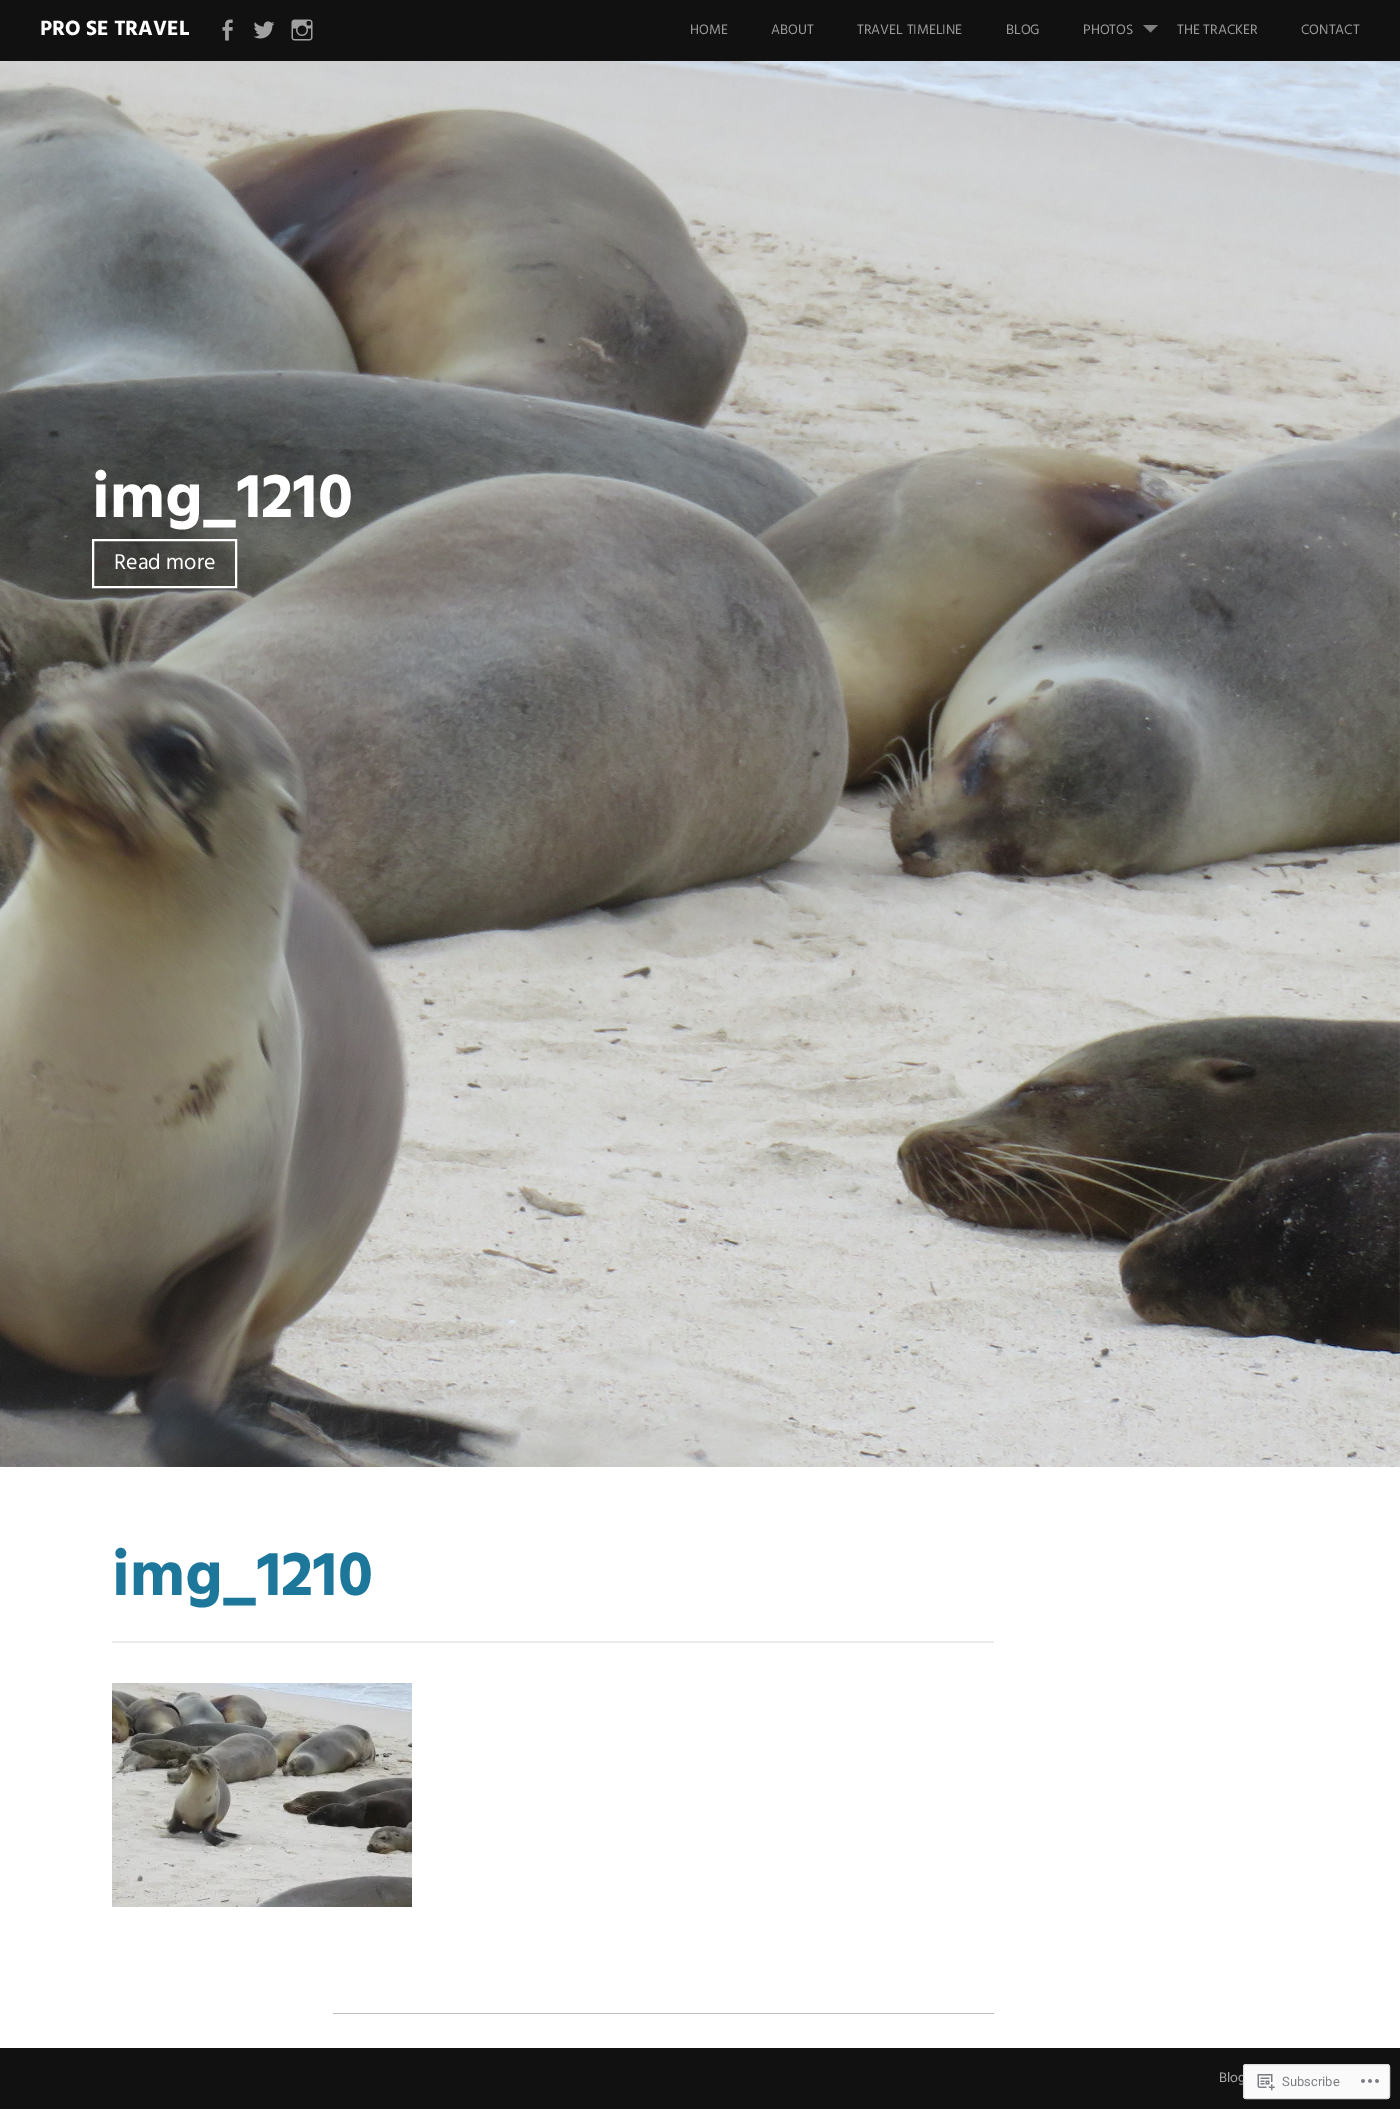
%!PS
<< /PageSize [1400 2109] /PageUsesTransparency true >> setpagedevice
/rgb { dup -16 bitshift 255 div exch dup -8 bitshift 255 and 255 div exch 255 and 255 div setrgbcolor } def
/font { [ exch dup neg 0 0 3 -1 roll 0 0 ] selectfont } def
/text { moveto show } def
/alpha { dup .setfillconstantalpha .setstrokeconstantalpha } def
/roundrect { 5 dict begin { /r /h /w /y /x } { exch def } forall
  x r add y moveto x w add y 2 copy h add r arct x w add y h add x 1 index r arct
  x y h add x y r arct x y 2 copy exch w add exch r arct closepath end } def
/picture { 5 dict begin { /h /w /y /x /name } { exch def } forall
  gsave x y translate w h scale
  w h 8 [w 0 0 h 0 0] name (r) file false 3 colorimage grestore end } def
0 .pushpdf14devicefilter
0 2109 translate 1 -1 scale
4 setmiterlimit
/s1 { /Hind-Bold 21.25 font 16#FFFFFF rgb } def
/s2 { /Hind-Regular 14 font 16#999999 rgb } def
/s3 { /Hind-Bold 64 font 16#FFFFFF rgb } def
/s4 { /Hind-Regular 22 font 16#FFFFFF rgb } def
/s5 { /Hind-Bold 64 font 16#1C779B rgb } def
/s6 { /Hind-Regular 14 font 16#AAAAAA rgb } def
/s7 { /Roboto-Regular 13 font 16#7B7F84 rgb } def
16#FFFFFF rgb
0 0 1400 2109 rectfill
16#111111 rgb
0 0 1400 61 rectfill
s1
(PRO SE TRAVEL) 40 35 text
(pic1.raw) 222 19 11 22 picture
(pic2.raw) 253 21 22 18 picture
(pic3.raw) 291 19 22 22 picture
s2
(HOME) 690 34 text
(ABOUT) 771 34 text
(TRAVEL TIMELINE) 857 34 text
(BLOG) 1006 34 text
(PHOTOS) 1083 34 text
16#808080 rgb
1143 25 moveto 1158 25 lineto 1150.5 32.5 lineto closepath fill
s2
(THE TRACKER) 1177 34 text
(CONTACT) 1301 34 text
(pic4.raw) 0 61 1400 1406 picture
s3
(img_1210) 92 517 text
2 setlinewidth
93 540 143 47 rectstroke
s4
(Read more) 114 569 text
16#EBEBEB rgb
112 1641 882 2 rectfill
s5
(img_1210) 112 1595 text
(pic5.raw) 112 1683 300 224 picture
16#BDBDBD rgb
333 2013 661 1 rectfill
16#111111 rgb
0 2048 1400 61 rectfill
s6
(Blog) 1219 2082 text
0.98 alpha
16#FFFFFF rgb
1243 2064 147 35 3 roundrect fill
16#DCDCDE rgb
1 setlinewidth
1243.5 2064.5 146 34 2.5 roundrect stroke
1 alpha
(pic6.raw) 1257 2074 18 17 picture
s7
(Subscribe) 1282 2086 text
(pic7.raw) 1361 2079 18 4 picture
.poppdf14devicefilter showpage
